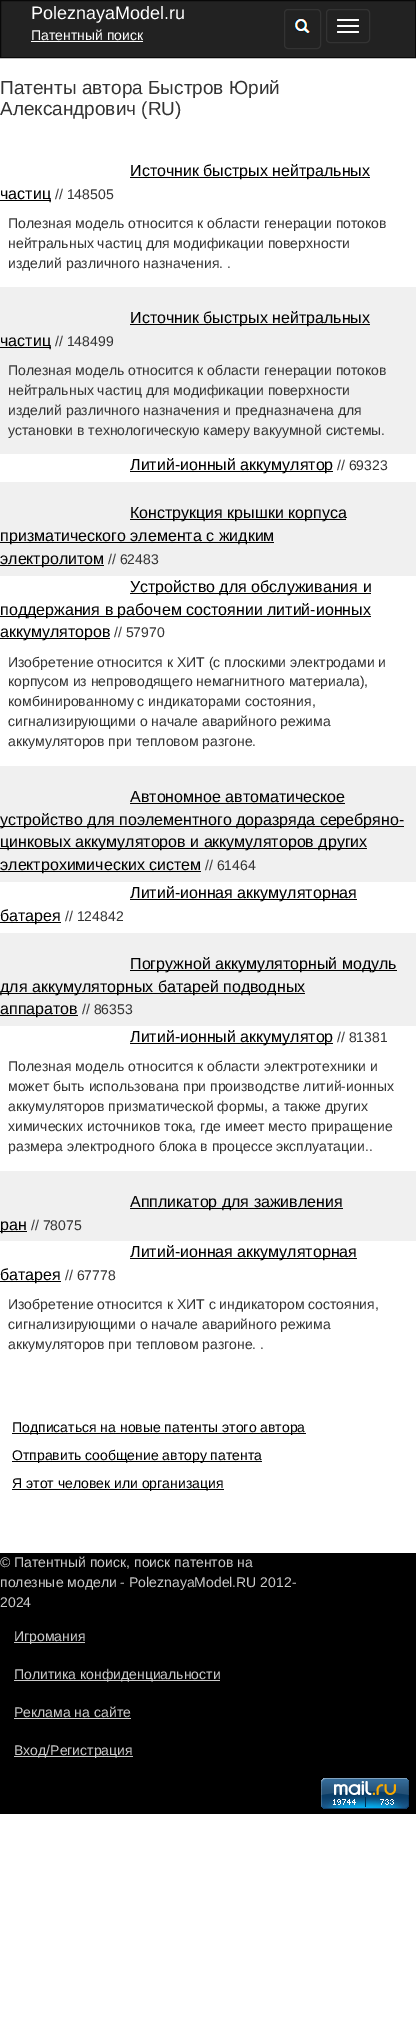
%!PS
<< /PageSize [416 2044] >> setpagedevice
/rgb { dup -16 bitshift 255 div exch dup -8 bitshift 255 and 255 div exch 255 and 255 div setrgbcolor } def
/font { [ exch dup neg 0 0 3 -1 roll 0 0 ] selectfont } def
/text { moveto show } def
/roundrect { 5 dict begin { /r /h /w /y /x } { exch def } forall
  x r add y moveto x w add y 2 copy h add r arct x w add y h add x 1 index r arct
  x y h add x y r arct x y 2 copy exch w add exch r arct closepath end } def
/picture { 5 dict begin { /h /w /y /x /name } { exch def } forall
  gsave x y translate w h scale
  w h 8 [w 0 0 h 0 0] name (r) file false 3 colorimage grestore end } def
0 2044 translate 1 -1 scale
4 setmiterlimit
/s1 { /LiberationSans-Regular 18 font 16#FFFFFF rgb } def
/s2 { /LiberationSans-Regular 14 font 16#FFFFFF rgb } def
/s3 { /LiberationSans-Regular 19 font 16#333333 rgb } def
/s4 { /LiberationSans-Regular 16 font 16#000000 rgb } def
/s5 { /LiberationSans-Regular 14 font 16#333333 rgb } def
/s6 { /LiberationSans-Regular 14 font 16#000000 rgb } def
/s7 { /LiberationSans-Regular 14 font 16#CCCCCC rgb } def
16#FFFFFF rgb
0 0 416 2044 rectfill
16#222222 rgb
0.5 0.5 moveto 415.5 0.5 lineto 415.5 57.5 lineto 0.5 57.5 lineto closepath gsave fill grestore
16#080808 rgb
stroke
s1
(PoleznayaModel.ru) 31 19 text
s2
(Патентный поиск) 31 40 text
31 41 112 1 rectfill
16#333333 rgb
284.5 9.5 36 39 3.5 roundrect stroke
(pic1.raw) 295 19 15 14 picture
326.5 9.5 43 33 3.5 roundrect stroke
16#FFFFFF rgb
337 19 22 2 1 roundrect fill
337 25 22 2 1 roundrect fill
337 31 22 2 1 roundrect fill
s3
(Патенты автора Быстров Юрий) 0 94 text
(Александрович \(RU\)) 0 115 text
16#000000 rgb
130 177 240 1 rectfill
s4
(Источник быстрых нейтральных) 130 176 text
0 200 51 1 rectfill
(частиц) 0 199 text
s5
(// 148505) 55 199 text
(Полезная модель относится к области генерации потоков) 8 228 text
(нейтральных частиц для модификации поверхности) 8 248 text
(изделий различного назначения. .) 8 268 text
16#F0F0F0 rgb
0 287 416 167 rectfill
16#000000 rgb
130 324 240 1 rectfill
s4
(Источник быстрых нейтральных) 130 323 text
0 347 51 1 rectfill
(частиц) 0 346 text
s5
(// 148499) 55 346 text
(Полезная модель относится к области генерации потоков) 8 375 text
(нейтральных частиц для модификации поверхности) 8 395 text
(изделий различного назначения и предназначена для) 8 415 text
(установки в технологическую камеру вакуумной системы.) 8 435 text
16#000000 rgb
130 471 203 1 rectfill
s4
(Литий-ионный аккумулятор) 130 470 text
s5
(// 69323) 337 470 text
16#F0F0F0 rgb
0 482 416 94 rectfill
16#000000 rgb
130 519 216 1 rectfill
s4
(Конструкция крышки корпуса) 130 518 text
0 542 274 1 rectfill
(призматического элемента с жидким) 0 541 text
0 565 104 1 rectfill
(электролитом) 0 564 text
s5
(// 62483) 108 564 text
16#000000 rgb
130 593 241 1 rectfill
s4
(Устройство для обслуживания и) 130 592 text
0 616 371 1 rectfill
(поддержания в рабочем состоянии литий-ионных) 0 615 text
0 638 110 1 rectfill
(аккумуляторов) 0 637 text
s5
(// 57970) 114 637 text
(Изобретение относится к ХИТ \(с плоскими электродами и) 8 667 text
(корпусом из непроводящего немагнитного материала\),) 8 686 text
(комбинированному с индикаторами состояния,) 8 706 text
(сигнализирующими о начале аварийного режима) 8 726 text
(аккумуляторов при тепловом разгоне.) 8 746 text
16#F0F0F0 rgb
0 766 416 116 rectfill
s4
(Автономное автоматическое) 130 802 text
130 803 215 1 rectfill
0 826 404 1 rectfill
(устройство для поэлементного доразряда серебряно-) 0 825 text
0 848 367 1 rectfill
(цинковых аккумуляторов и аккумуляторов других) 0 847 text
0 871 201 1 rectfill
(электрохимических систем) 0 870 text
s5
(// 61464) 205 870 text
16#000000 rgb
130 899 227 1 rectfill
s4
(Литий-ионная аккумуляторная) 130 898 text
0 922 61 1 rectfill
(батарея) 0 921 text
s5
(// 124842) 65 921 text
16#F0F0F0 rgb
0 933 416 93 rectfill
16#000000 rgb
130 970 267 1 rectfill
s4
(Погружной аккумуляторный модуль) 130 969 text
0 993 305 1 rectfill
(для аккумуляторных батарей подводных) 0 992 text
0 1015 78 1 rectfill
(аппаратов) 0 1014 text
s5
(// 86353) 82 1014 text
16#000000 rgb
130 1043 203 1 rectfill
s4
(Литий-ионный аккумулятор) 130 1042 text
s5
(// 81381) 337 1042 text
(Полезная модель относится к области электротехники и) 8 1071 text
(может быть использована при производстве литий-ионных) 8 1091 text
(аккумуляторов призматической формы, а также других) 8 1111 text
(химических источников тока, где имеет место приращение) 8 1131 text
(размера электродного блока в процессе эксплуатации..) 8 1151 text
16#F0F0F0 rgb
0 1171 416 70 rectfill
16#000000 rgb
130 1208 213 1 rectfill
s4
(Аппликатор для заживления) 130 1207 text
0 1231 27 1 rectfill
(ран) 0 1230 text
s5
(// 78075) 31 1230 text
16#000000 rgb
130 1258 227 1 rectfill
s4
(Литий-ионная аккумуляторная) 130 1257 text
0 1281 61 1 rectfill
(батарея) 0 1280 text
s5
(// 67778) 65 1280 text
(Изобретение относится к ХИТ с индикатором состояния,) 8 1309 text
(сигнализирующими о начале аварийного режима) 8 1329 text
(аккумуляторов при тепловом разгоне. .) 8 1349 text
16#000000 rgb
12 1433 294 1 rectfill
(Подписаться на новые патенты этого автора) 12 1432 text
12 1461 250 1 rectfill
(Отправить сообщение автору патента) 12 1460 text
12 1489 212 1 rectfill
(Я этот человек или организация) 12 1488 text
0 1553 416 261 rectfill
s7
(© Патентный поиск, поиск патентов на) 0 1567 text
(полезные модели - PoleznayaModel.RU 2012-) 0 1587 text
(2024) 0 1607 text
14 1642 71 1 rectfill
(Игромания) 14 1641 text
14 1680 206 1 rectfill
(Политика конфиденциальности) 14 1679 text
(Реклама на сайте) 14 1717 text
14 1718 117 1 rectfill
14 1756 119 1 rectfill
(Вход/Регистрация) 14 1755 text
(pic2.raw) 321 1778 88 31 picture
showpage
